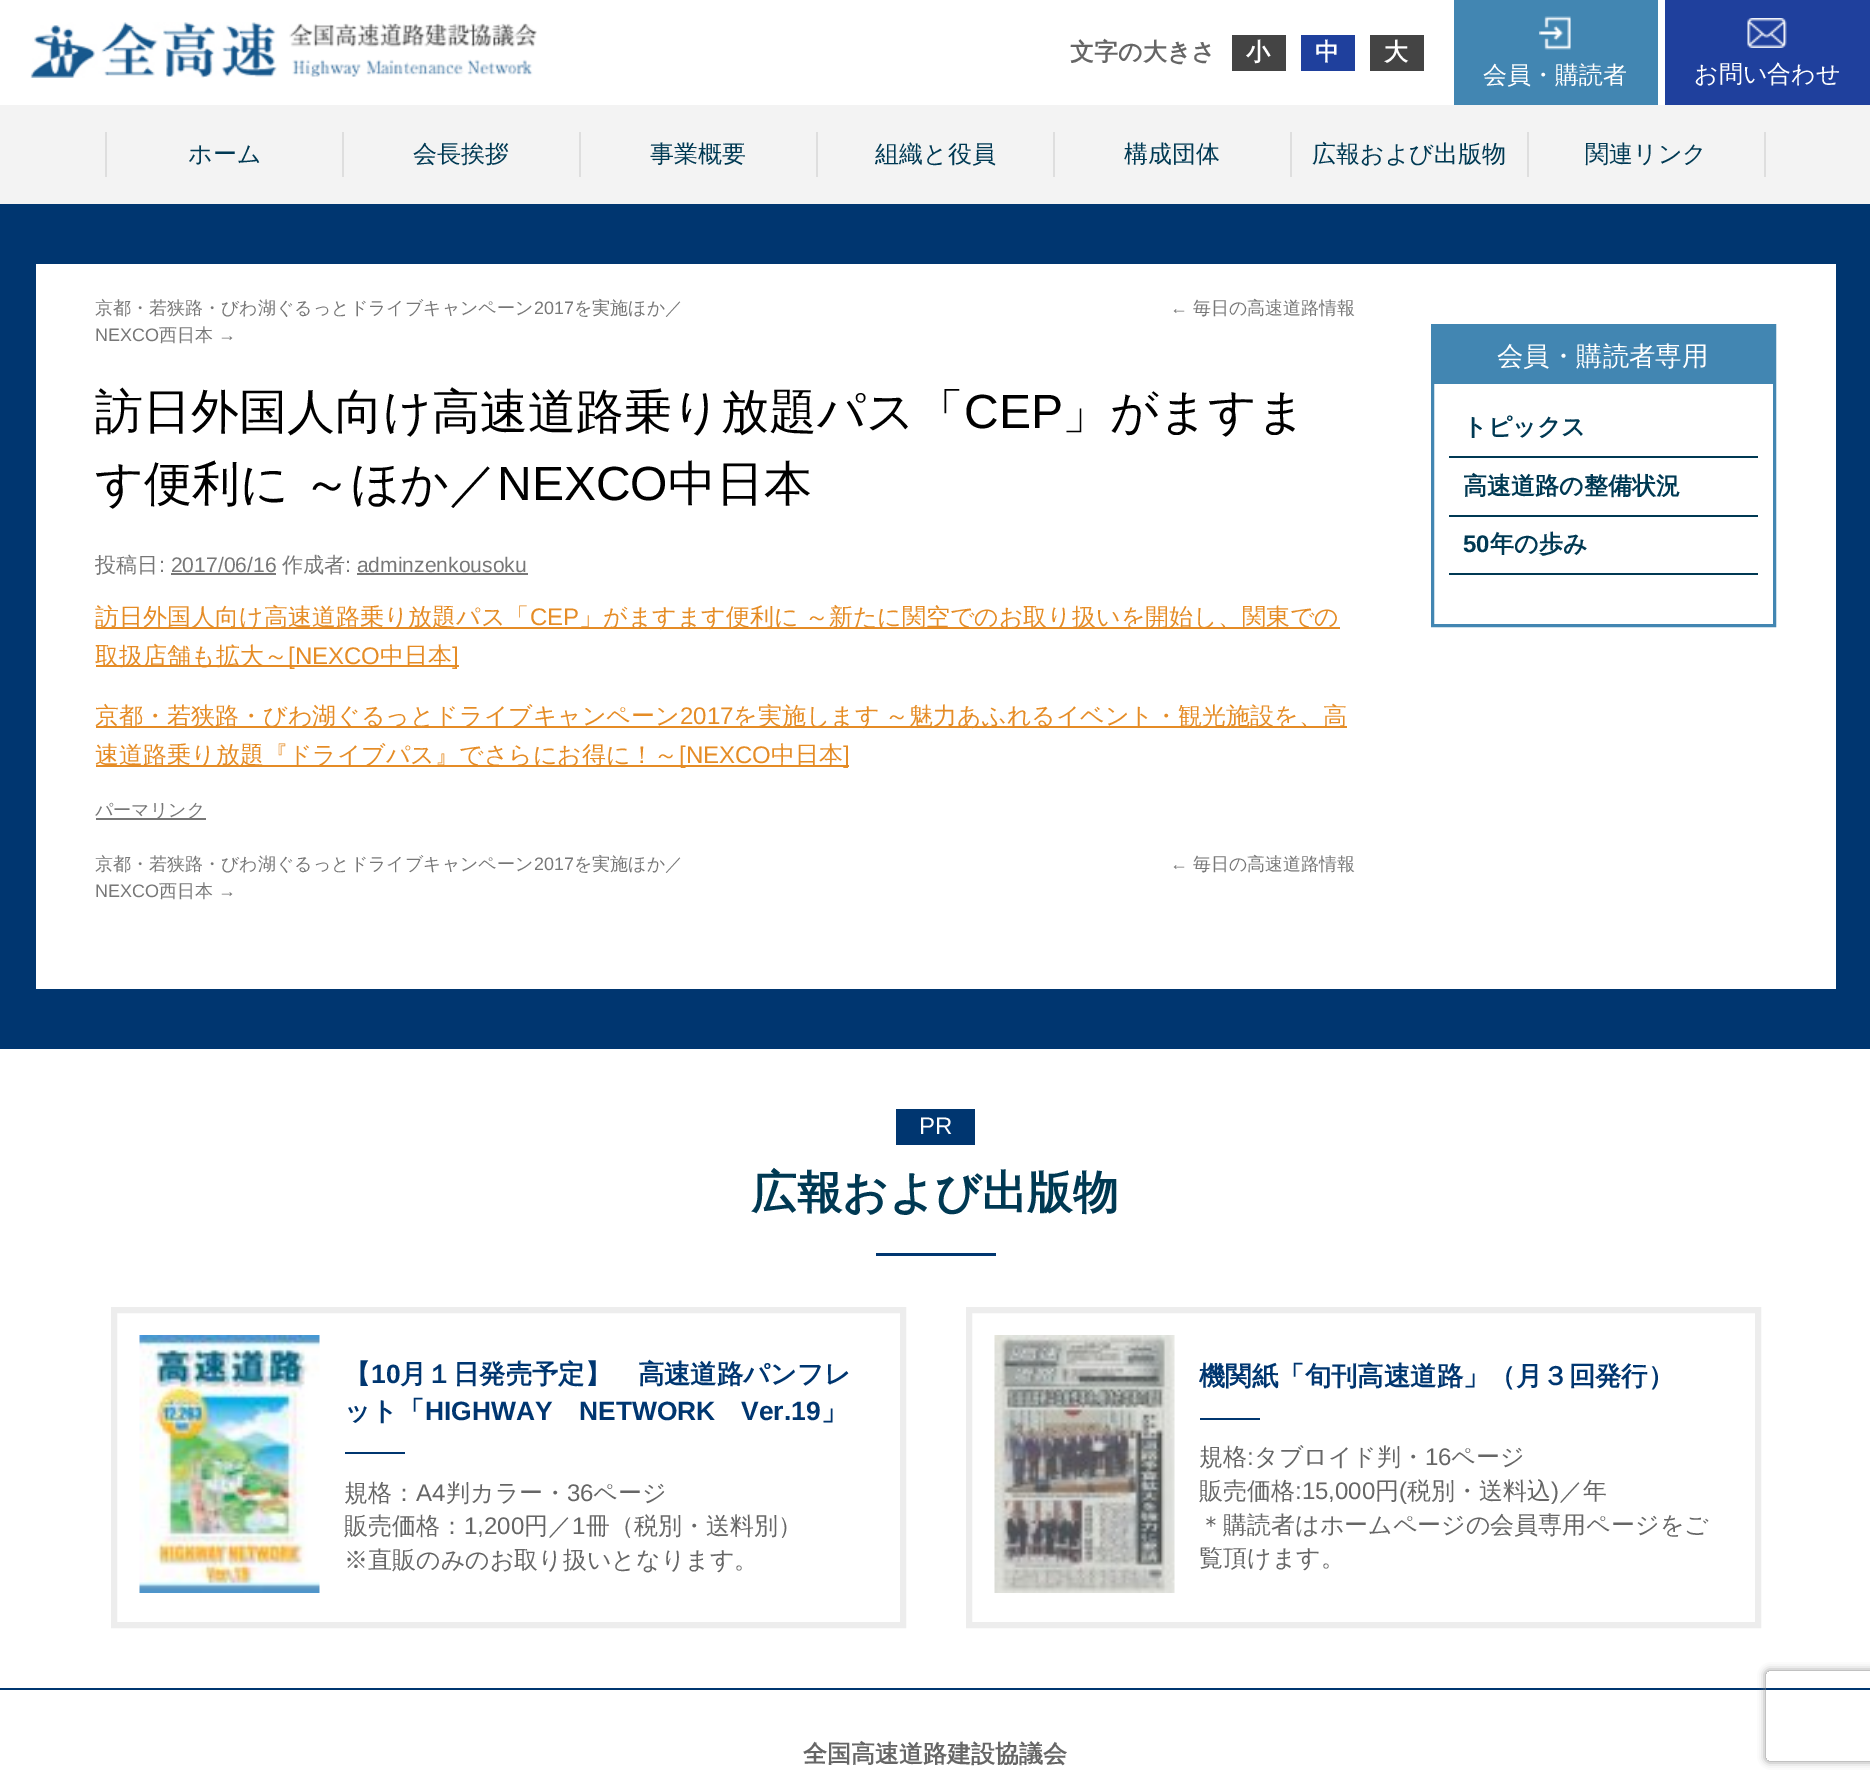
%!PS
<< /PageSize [1870 1782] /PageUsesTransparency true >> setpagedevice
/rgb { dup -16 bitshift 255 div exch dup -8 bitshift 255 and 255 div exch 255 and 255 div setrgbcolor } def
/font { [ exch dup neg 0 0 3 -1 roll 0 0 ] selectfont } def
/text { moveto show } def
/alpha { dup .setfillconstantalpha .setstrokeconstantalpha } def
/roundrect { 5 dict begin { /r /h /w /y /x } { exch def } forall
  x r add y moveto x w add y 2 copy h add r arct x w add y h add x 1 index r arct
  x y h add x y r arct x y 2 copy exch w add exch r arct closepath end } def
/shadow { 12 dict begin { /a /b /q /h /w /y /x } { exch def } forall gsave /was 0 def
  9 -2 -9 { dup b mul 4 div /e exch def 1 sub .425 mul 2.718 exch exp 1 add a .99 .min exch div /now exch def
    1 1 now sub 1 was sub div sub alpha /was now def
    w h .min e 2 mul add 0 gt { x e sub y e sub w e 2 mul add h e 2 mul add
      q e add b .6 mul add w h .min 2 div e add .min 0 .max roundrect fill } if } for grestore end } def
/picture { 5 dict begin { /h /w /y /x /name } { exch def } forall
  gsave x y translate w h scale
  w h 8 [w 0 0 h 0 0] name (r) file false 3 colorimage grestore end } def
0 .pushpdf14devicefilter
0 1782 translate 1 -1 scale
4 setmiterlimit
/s1 { /WenQuanYiZenHei-Bold 24 font 16#666666 rgb } def
/s2 { /WenQuanYiZenHei-Bold 24 font 16#FFFFFF rgb } def
/s3 { /WenQuanYiZenHei-Medium 24 font 16#FFFFFF rgb } def
/s4 { /WenQuanYiZenHei-Medium 24 font 16#003953 rgb } def
/s5 { /WenQuanYiZenHei-Medium 18 font 16#777777 rgb } def
/s6 { /LiberationSans-Regular 18 font 16#777777 rgb } def
/s7 { /WenQuanYiZenHei-Medium 48 font 16#000000 rgb } def
/s8 { /LiberationSans-Regular 48 font 16#000000 rgb } def
/s9 { /WenQuanYiZenHei-Medium 21.1 font 16#777777 rgb } def
/s10 { /LiberationSans-Regular 21.1 font 16#777777 rgb } def
/s11 { /WenQuanYiZenHei-Medium 24 font 16#E58C26 rgb } def
/s12 { /LiberationSans-Regular 24 font 16#E58C26 rgb } def
/s13 { /WenQuanYiZenHei-Medium 26.4 font 16#FFFFFF rgb } def
/s14 { /WenQuanYiZenHei-Bold 24 font 16#003953 rgb } def
/s15 { /LiberationSans-Bold 24 font 16#003953 rgb } def
/s16 { /LiberationSans-Regular 24 font 16#FFFFFF rgb } def
/s17 { /WenQuanYiZenHei-Bold 45.5 font 16#003953 rgb } def
/s18 { /WenQuanYiZenHei-Bold 26.4 font 16#003670 rgb } def
/s19 { /LiberationSans-Bold 26.4 font 16#003670 rgb } def
/s20 { /WenQuanYiZenHei-Medium 24 font 16#666666 rgb } def
/s21 { /LiberationSans-Regular 24 font 16#666666 rgb } def
16#FFFFFF rgb
0 0 1870 1782 rectfill
(pic1.raw) 30 22 507 56 picture
s1
(文字の大きさ) 1070 60 text
16#444444 rgb
1232 35 54 36 rectfill
s2
(小) 1246 60 text
16#1F409D rgb
1301 35 54 36 rectfill
s2
(中) 1315 60 text
16#444444 rgb
1370 35 54 36 rectfill
s2
(大) 1384 60 text
16#4286B2 rgb
1454 0 204 105 rectfill
(pic2.raw) 1539 16 32 34 picture
s3
(会員・購読者) 1483 83 text
16#1F409D rgb
1665 0 205 105 rectfill
(pic3.raw) 1747 18 40 30 picture
s3
(お問い合わせ) 1694 82 text
16#F3F3F3 rgb
0 105 1870 99 rectfill
16#DEDEDE rgb
105 132 2 45 rectfill
s4
(ホーム) 188 162 text
16#DEDEDE rgb
342 132 2 45 rectfill
s4
(会長挨拶) 413 162 text
16#DEDEDE rgb
579 132 2 45 rectfill
s4
(事業概要) 650 162 text
16#DEDEDE rgb
816 132 2 45 rectfill
s4
(組織と役員) 875 162 text
16#DEDEDE rgb
1053 132 2 45 rectfill
s4
(構成団体) 1124 162 text
16#DEDEDE rgb
1290 132 2 45 rectfill
s4
(広報および出版物) 1312 162 text
16#DEDEDE rgb
1764 132 2 45 rectfill
1527 132 2 45 rectfill
s4
(関連リンク) 1585 162 text
16#003670 rgb
0 204 1870 845 rectfill
16#FFFFFF rgb
36 264 1800 725 rectfill
s5
(京都・若狭路・びわ湖ぐるっとドライブキャンペーン) 95 314 text
s6
(2017) 534 314 text
s5
(を実施ほか／) 574 314 text
s6
(NEXCO) 95 341 text
s5
(西日本) 159 341 text
s6
(→) 218 341 text
(←) 1170 314 text
s5
(毎日の高速道路情報) 1193 314 text
s7
(訪日外国人向け高速道路乗り放題パス「) 95 428 text
s8
(CEP) 964 428 text
s7
(」がますま) 1062 428 text
95 500 moveto -1 0 32 (す便利に ～ほか／) widthshow
s8
(NEXCO) 497 500 text
s7
(中日本) 668 500 text
s9
(投稿日) 95 572 text
s10
(: 2017/06/16) 159 572 text
s9
(作成者) 282 572 text
s10
(: adminzenkousoku) 345 572 text
171 573 105 2 rectfill
357 573 171 2 rectfill
16#E58C26 rgb
96 627 1244 2 rectfill
s11
(訪日外国人向け高速道路乗り放題パス「) 95 625 text
s12
(CEP) 530 625 text
/WenQuanYiZenHei-Medium 24 font
579 625 moveto -1 0 32 (」がますます便利に ～新たに関空でのお取り扱いを開始し、関東での) widthshow
96 665 363 2 rectfill
(取扱店舗も拡大～) 95 664 text
s12
([NEXCO) 288 664 text
s11
(中日本) 380 664 text
s12
(]) 452 664 text
96 726 1251 2 rectfill
s11
(京都・若狭路・びわ湖ぐるっとドライブキャンペーン) 95 724 text
s12
(2017) 680 724 text
/WenQuanYiZenHei-Medium 24 font
733 724 moveto -1 0 32 (を実施します ～魅力あふれるイベント・観光施設を、高) widthshow
96 765 753 2 rectfill
(速道路乗り放題『ドライブパス』でさらにお得に！～) 95 763 text
s12
([NEXCO) 679 763 text
s11
(中日本) 771 763 text
s12
(]) 843 763 text
16#777777 rgb
96 818 110 2 rectfill
s5
(パーマリンク) 95 816 text
(京都・若狭路・びわ湖ぐるっとドライブキャンペーン) 95 870 text
s6
(2017) 534 870 text
s5
(を実施ほか／) 574 870 text
s6
(NEXCO) 95 897 text
s5
(西日本) 159 897 text
s6
(→) 218 897 text
(←) 1170 870 text
s5
(毎日の高速道路情報) 1193 870 text
16#4286B2 rgb
3 setlinewidth
1432.5 325.5 342 300 rectstroke
1434 327 339 57 rectfill
s13
(会員・購読者専用) 1497 365 text
16#003953 rgb
1449 456 309 2 rectfill
s14
(トピックス) 1463 435 text
1449 515 309 2 rectfill
(高速道路の整備状況) 1463 494 text
1449 573 309 2 rectfill
s15
(50) 1463 552 text
s14
(年の歩み) 1490 552 text
16#003670 rgb
896 1109 79 36 rectfill
s16
(PR) 919 1134 text
s17
(広報および出版物) 751 1208 text
16#003670 rgb
876 1253 120 3 rectfill
16#EDEDED rgb
6 setlinewidth
114 1310 789 315 rectstroke
(pic4.raw) 139 1335 181 258 picture
s18
(【) 344 1383 text
s19
(10) 371 1383 text
s18
(月１日発売予定】　高速道路パンフレ) 400 1383 text
(ット「) 344 1420 text
s19
(HIGHWAY) 425 1420 text
(NETWORK) 579 1420 text
(Ver.19) 741 1420 text
s18
(」) 821 1420 text
345 1452 60 2 rectfill
s20
(規格：) 344 1501 text
s21
(A4) 416 1501 text
s20
(判カラー・) 446 1501 text
s21
(36) 567 1501 text
s20
(ページ) 593 1501 text
(販売価格：) 344 1534 text
s21
(1,200) 464 1534 text
s20
(円／) 524 1534 text
s21
(1) 572 1534 text
s20
(冊（税別・送料別）) 586 1534 text
(※直販のみのお取り扱いとなります。) 344 1568 text
16#EDEDED rgb
969 1310 789 315 rectstroke
(pic5.raw) 994 1335 181 258 picture
s18
(機関紙「旬刊高速道路」（月３回発行）) 1199 1385 text
1200 1418 60 2 rectfill
s20
(規格) 1199 1465 text
s21
(:) 1247 1465 text
s20
(タブロイド判・) 1254 1465 text
s21
(16) 1425 1465 text
s20
(ページ) 1451 1465 text
(販売価格) 1199 1499 text
s21
(:15,000) 1295 1499 text
s20
(円) 1375 1499 text
s21
(\() 1399 1499 text
s20
(税別・送料込) 1407 1499 text
s21
(\)) 1551 1499 text
s20
(／年) 1559 1499 text
(＊購読者はホームページの会員専用ページをご) 1199 1533 text
(覧頂けます。) 1199 1566 text
16#003670 rgb
0 1688 1870 2 rectfill
s1
(全国高速道路建設協議会) 803 1762 text
gsave
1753 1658 moveto 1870 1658 lineto 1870 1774 lineto 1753 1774 lineto closepath 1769 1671 moveto 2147 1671 lineto 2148.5 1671 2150 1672.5 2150 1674 curveto 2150 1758 lineto 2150 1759.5 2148.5 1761 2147 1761 curveto 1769 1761 lineto 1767.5 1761 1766 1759.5 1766 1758 curveto 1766 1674 lineto 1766 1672.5 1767.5 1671 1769 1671 curveto closepath eoclip newpath
16#808080 rgb
1766 1671 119 90 3 4 1 shadow
grestore
.poppdf14devicefilter showpage
